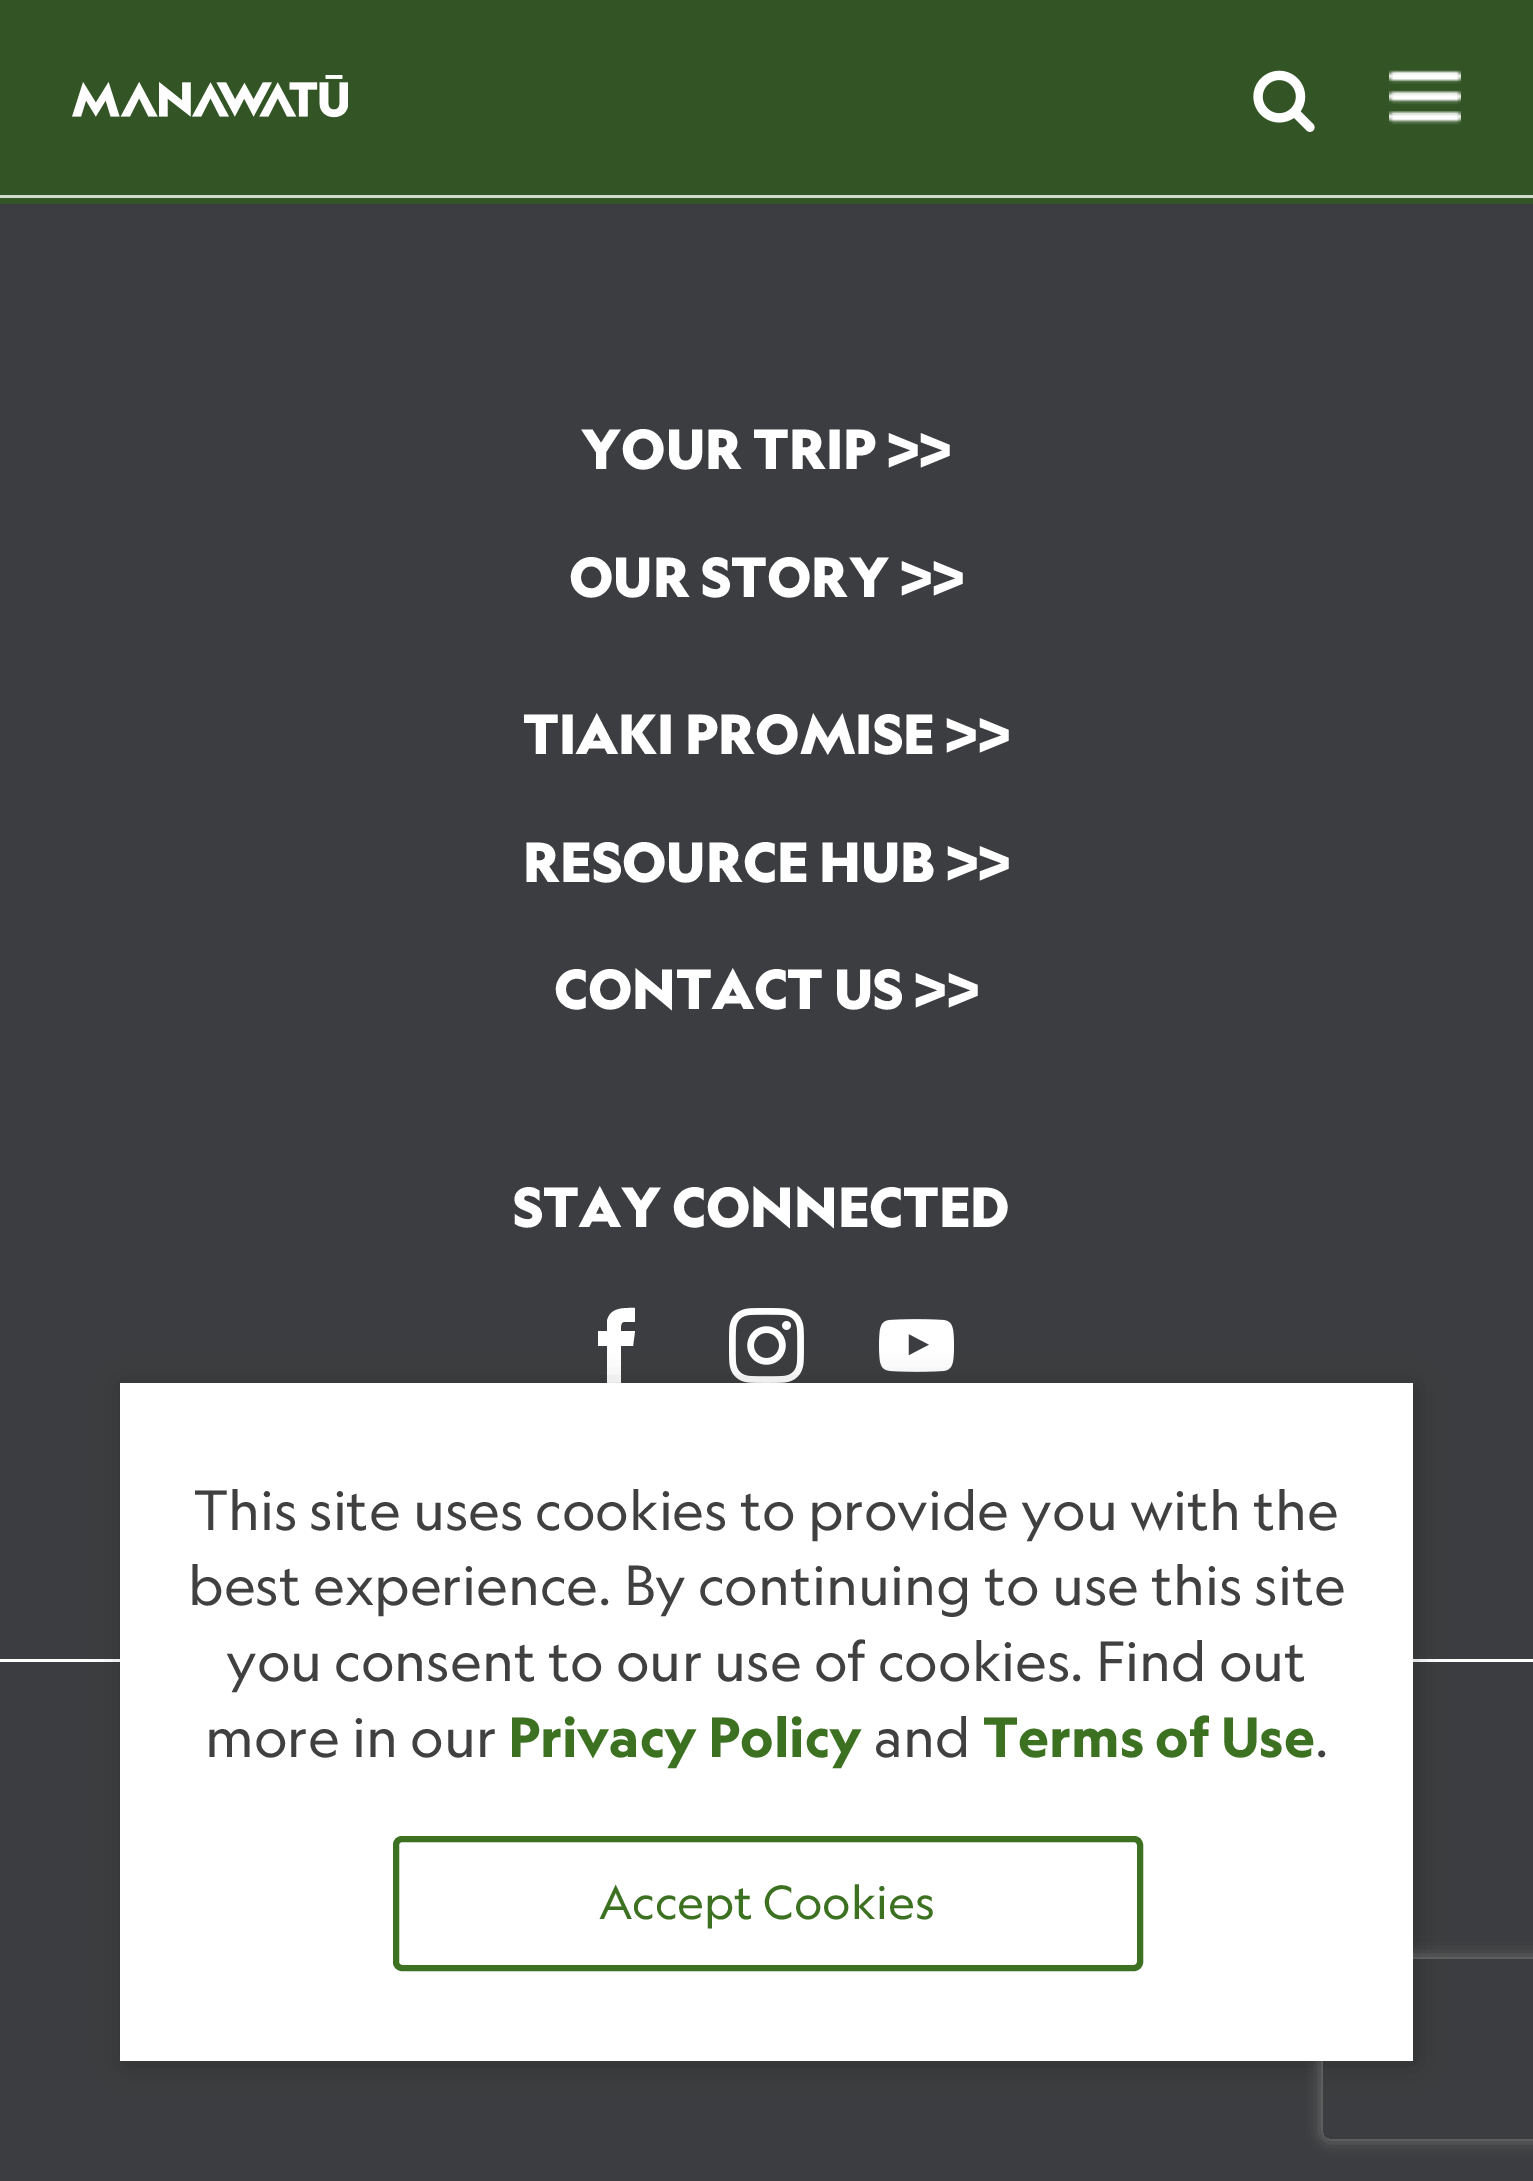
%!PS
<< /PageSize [1533 2181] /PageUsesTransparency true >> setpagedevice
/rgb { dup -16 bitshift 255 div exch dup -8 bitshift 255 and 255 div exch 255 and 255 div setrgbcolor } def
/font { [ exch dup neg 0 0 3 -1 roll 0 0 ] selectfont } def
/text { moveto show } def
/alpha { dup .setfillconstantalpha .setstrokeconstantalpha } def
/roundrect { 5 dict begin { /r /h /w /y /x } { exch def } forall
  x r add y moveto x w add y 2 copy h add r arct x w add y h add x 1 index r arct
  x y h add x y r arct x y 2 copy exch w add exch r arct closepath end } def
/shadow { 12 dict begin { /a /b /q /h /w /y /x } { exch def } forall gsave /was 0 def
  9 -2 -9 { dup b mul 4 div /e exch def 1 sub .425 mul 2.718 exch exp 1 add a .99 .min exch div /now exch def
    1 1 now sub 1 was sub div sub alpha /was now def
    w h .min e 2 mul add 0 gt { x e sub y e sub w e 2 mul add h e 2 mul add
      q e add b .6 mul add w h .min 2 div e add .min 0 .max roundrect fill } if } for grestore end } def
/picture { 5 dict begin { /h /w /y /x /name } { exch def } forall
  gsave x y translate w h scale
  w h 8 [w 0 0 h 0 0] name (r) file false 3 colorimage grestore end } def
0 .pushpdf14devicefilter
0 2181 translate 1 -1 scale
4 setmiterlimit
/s1 { /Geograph-Black 54 font 16#FFFFFF rgb } def
/s2 { /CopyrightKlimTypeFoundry-Regular 54 font 16#404040 rgb } def
/s3 { /CopyrightKlimTypeFoundry-Bold 54 font 16#3D7122 rgb } def
/s4 { /CopyrightKlimTypeFoundry-Regular 45.75 font 16#3D7122 rgb } def
16#335525 rgb
0 0 1533 2181 rectfill
16#D2DACF rgb
0 195 1533 3 rectfill
(pic1.raw) 72 75 276 43 picture
(pic2.raw) 1253 70 62 62 picture
(pic3.raw) 1389 70 72 55 picture
16#3B3D40 rgb
0 204 1533 1455 rectfill
16#FFFFFF rgb
0 1659 1533 3 rectfill
s1
(YOUR TRIP >>) 581 469 text
(OUR STORY >>) 569 597 text
(TIAKI PROMISE >>) 523 754 text
(RESOURCE HUB >>) 523 882 text
(CONTACT US >>) 554 1009 text
(STAY CONNECTED) 513 1227 text
624 1322 moveto 635 1322 lineto 635 1308 lineto 624 1308 610 1307 607 1321 curveto 607 1331 lineto 598 1331 lineto 598 1346 lineto 607 1346 lineto 607 1383 lineto 621 1383 lineto 621 1346 lineto 633 1346 lineto 635 1331 lineto 621 1331 lineto 621 1329 620 1322 624 1322 curveto closepath fill
(pic4.raw) 729 1308 75 75 picture
(pic5.raw) 879 1319 75 53 picture
16#3B3D40 rgb
0 1662 1533 519 rectfill
16#000000 rgb
123 1386 1293 678 0 15 0.2 shadow
gsave
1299 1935 moveto 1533 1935 lineto 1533 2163 lineto 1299 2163 lineto closepath 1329 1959 moveto 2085 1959 lineto 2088.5 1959 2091 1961.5 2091 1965 curveto 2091 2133 lineto 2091 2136.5 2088.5 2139 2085 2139 curveto 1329 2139 lineto 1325.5 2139 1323 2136.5 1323 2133 curveto 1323 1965 lineto 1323 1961.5 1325.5 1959 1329 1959 curveto closepath eoclip newpath
16#808080 rgb
1323 1959 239 180 6 7.5 1 shadow
grestore
16#FFFFFF rgb
120 1383 1293 678 rectfill
s2
(This site uses cookies to provide you with the) 194 1530 text
(best experience. By continuing to use this site) 188 1605 text
(you consent to our use of cookies. Find out) 226 1681 text
(more in our) 205 1757 text
s3
(Privacy Policy) 508 1757 text
s2
(and) 874 1757 text
s3
(Terms of Use) 983 1757 text
s2
(.) 1315 1757 text
16#3D7122 rgb
6 setlinewidth
396 1839 744 129 6 roundrect stroke
s4
(Accept Cookies) 599 1919 text
.poppdf14devicefilter showpage
